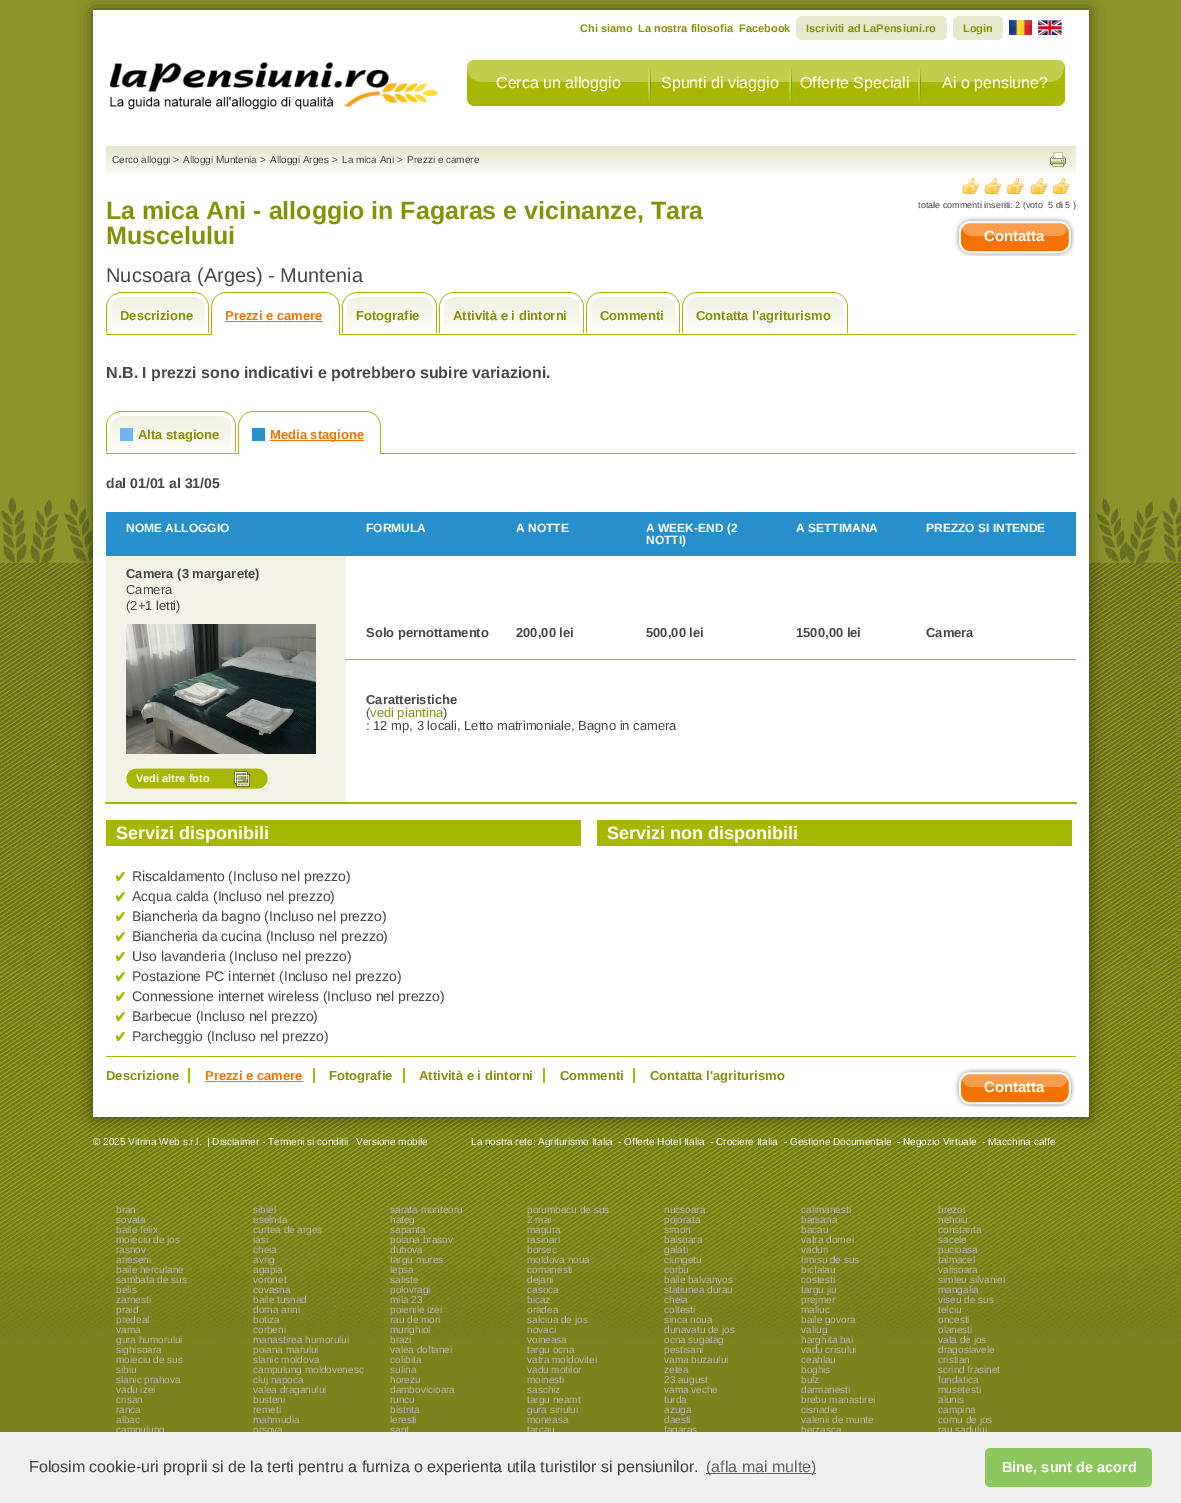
%!PS
<< /PageSize [1181 1503] /PageUsesTransparency true >> setpagedevice
/rgb { dup -16 bitshift 255 div exch dup -8 bitshift 255 and 255 div exch 255 and 255 div setrgbcolor } def
/font { [ exch dup neg 0 0 3 -1 roll 0 0 ] selectfont } def
/text { moveto show } def
/alpha { dup .setfillconstantalpha .setstrokeconstantalpha } def
/roundrect { 5 dict begin { /r /h /w /y /x } { exch def } forall
  x r add y moveto x w add y 2 copy h add r arct x w add y h add x 1 index r arct
  x y h add x y r arct x y 2 copy exch w add exch r arct closepath end } def
/shadow { 12 dict begin { /a /b /q /h /w /y /x } { exch def } forall gsave /was 0 def
  9 -2 -9 { dup b mul 4 div /e exch def 1 sub .425 mul 2.718 exch exp 1 add a .99 .min exch div /now exch def
    1 1 now sub 1 was sub div sub alpha /was now def
    w h .min e 2 mul add 0 gt { x e sub y e sub w e 2 mul add h e 2 mul add
      q e add b .6 mul add w h .min 2 div e add .min 0 .max roundrect fill } if } for grestore end } def
/picture { 5 dict begin { /h /w /y /x /name } { exch def } forall
  gsave x y translate w h scale
  w h 8 [w 0 0 h 0 0] name (r) file false 3 colorimage grestore end } def
0 .pushpdf14devicefilter
0 1503 translate 1 -1 scale
4 setmiterlimit
/s1 { /LiberationSans-Bold 11 font 16#859106 rgb } def
/s2 { /LiberationSans-Regular 16 font 16#FFFFFF rgb } def
/s3 { /LiberationSans-Regular 10 font 16#474747 rgb } def
/s4 { /LiberationSans-Bold 25 font 16#859106 rgb } def
/s5 { /LiberationSans-Regular 20 font 16#474747 rgb } def
/s6 { /LiberationSans-Regular 9 font 16#474747 rgb } def
/s7 { /LiberationSans-Bold 15 font 16#FFFFFF rgb } def
/s8 { /LiberationSans-Bold 13 font 16#859106 rgb } def
/s9 { /LiberationSans-Bold 13 font 16#F47300 rgb } def
/s10 { /LiberationSans-Bold 16 font 16#474747 rgb } def
/s11 { /LiberationSans-Bold 14 font 16#474747 rgb } def
/s12 { /LiberationSans-Bold 12 font 16#FFFFFF rgb } def
/s13 { /LiberationSans-Bold 13 font 16#474747 rgb } def
/s14 { /LiberationSans-Regular 13 font 16#474747 rgb } def
/s15 { /LiberationSans-Bold 11 font 16#FFFFFF rgb } def
/s16 { /LiberationSans-Regular 13 font 16#859106 rgb } def
/s17 { /LiberationSans-Bold 18 font 16#FFFFFF rgb } def
/s18 { /LiberationSans-Regular 14 font 16#474747 rgb } def
/s19 { /LiberationSans-Regular 10 font 16#FFFFFF rgb } def
/s20 { /LiberationSans-Regular 10 font 16#BABABA rgb } def
/s21 { /LiberationSans-Regular 16 font 16#404040 rgb } def
/s22 { /LiberationSans-Regular 16 font 16#636363 rgb } def
/s23 { /LiberationSans-Bold 14.5 font 16#FFFFFF rgb } def
16#8B9429 rgb
0 0 1181 1503 rectfill
16#7A821B rgb
0 1338 1181 94 rectfill
(pic1.raw) 0 10 1181 1328 picture
16#000000 rgb
93 10 996 1107 0 7.5 0.5 shadow
16#FFFFFF rgb
93 10 996 1107 rectfill
s1
(Chi siamo) 580 32 text
(La nostra filosofia) 638 32 text
(Facebook) 739 32 text
16#E6E9CE rgb
796 16 151 24 6 roundrect fill
s1
(Iscriviti ad LaPensiuni.ro) 806 32 text
16#E6E9CE rgb
953 16 50 24 6 roundrect fill
s1
(Login) 963 32 text
(pic2.raw) 1009 20 23 15 picture
(pic3.raw) 1038 20 24 15 picture
(pic4.raw) 109 62 330 48 picture
(pic5.raw) 467 60 183 46 picture
s2
(Cerca un alloggio) 496 88 text
(pic6.raw) 650 60 141 46 picture
(Spunti di viaggio) 661 88 text
(pic7.raw) 791 60 129 46 picture
(Offerte Speciali) 800 88 text
(pic8.raw) 920 60 145 46 picture
(Ai o pensiune?) 942 88 text
(pic9.raw) 106 146 970 27 picture
s3
(Cerco alloggi >) 112 163 text
(Alloggi Muntenia >) 183 163 text
(Alloggi Arges >) 270 163 text
(La mica Ani >) 342 163 text
(Prezzi e camere) 407 163 text
(pic10.raw) 1050 152 16 15 picture
s4
(La mica Ani - alloggio in Fagaras e vicinanze, Tara) 106 219 text
(Muscelului) 106 244 text
s5
(Nucsoara \(Arges\) - Muntenia) 106 282 text
(pic11.raw) 962 178 108 16 picture
s6
(totale commenti inseriti: 2 \(voto) 918 208 text
(5 di 5 \)) 1048 208 text
(pic12.raw) 955 217 120 39 picture
s7
(Contatta) 984 241 text
16#A7B700 rgb
106 334 970 1 rectfill
(pic13.raw) 106 292 14 42 picture
(pic14.raw) 120 292 89 42 picture
s8
(Descrizione) 120 320 text
(pic15.raw) 211 292 14 43 picture
(pic16.raw) 225 292 115 43 picture
s9
(Prezzi e camere) 225 320 text
225 321 98 1 rectfill
(pic17.raw) 342 292 14 42 picture
(pic18.raw) 356 292 81 42 picture
s8
(Fotografie) 356 320 text
(pic17.raw) 439 292 14 42 picture
(pic19.raw) 453 292 131 42 picture
(Attività e i dintorni) 453 320 text
(pic17.raw) 586 292 14 42 picture
(pic20.raw) 600 292 80 42 picture
(Commenti) 600 320 text
(pic17.raw) 682 292 14 42 picture
(pic21.raw) 696 292 152 42 picture
(Contatta l'agriturismo) 696 320 text
s10
(N.B. I prezzi sono indicativi e potrebbero subire variazioni.) 106 378 text
16#A7B700 rgb
106 453 970 1 rectfill
(pic13.raw) 106 411 14 42 picture
(pic22.raw) 120 411 116 42 picture
16#70B5F2 rgb
120 428 13 13 rectfill
s8
(Alta stagione) 138 439 text
(pic15.raw) 238 411 14 43 picture
(pic23.raw) 252 411 129 43 picture
16#278FCC rgb
252 428 13 13 rectfill
16#F47300 rgb
270 440 94 1 rectfill
(Media stagione) 270 439 text
s11
(dal 01/01 al 31/05) 106 488 text
16#278FCC rgb
106 512 970 44 rectfill
s12
(NOME ALLOGGIO) 126 532 text
(FORMULA) 366 532 text
(A NOTTE) 516 532 text
(A WEEK-END \(2) 646 532 text
(NOTTI\)) 646 544 text
(A SETTIMANA) 796 532 text
(PREZZO SI INTENDE) 926 532 text
16#F2F3E5 rgb
106 556 240 246 rectfill
s13
(Camera \(3 margarete\)) 126 578 text
s14
(Camera) 126 594 text
(\(2+1 letti\)) 126 610 text
(pic24.raw) 126 624 190 130 picture
(pic25.raw) 126 768 142 21 picture
s15
(Vedi altre foto) 136 782 text
16#A7B700 rgb
105 802 972 2 rectfill
s13
(Solo pernottamento) 366 637 text
(200,00 lei) 516 637 text
(500,00 lei) 646 637 text
(1500,00 lei) 796 637 text
16#A7B700 rgb
345 659 731 1 rectfill
s13
(Camera) 926 637 text
(Caratteristiche) 366 704 text
s14
(\() 366 717 text
s16
(vedi piantina) 370 717 text
s14
(\)) 443 717 text
(: 12 mp, 3 locali, Letto matrimoniale, Bagno in camera) 366 730 text
16#A7B700 rgb
106 820 475 26 rectfill
s17
(Servizi disponibili) 116 839 text
(pic26.raw) 116 872 9 9 picture
s18
(Riscaldamento \(Incluso nel prezzo\)) 132 881 text
(pic26.raw) 116 892 9 9 picture
(Acqua calda \(Incluso nel prezzo\)) 132 901 text
(pic26.raw) 116 912 9 9 picture
(Biancheria da bagno \(Incluso nel prezzo\)) 132 921 text
(pic26.raw) 116 932 9 9 picture
(Biancheria da cucina \(Incluso nel prezzo\)) 132 941 text
(pic26.raw) 116 952 9 9 picture
(Uso lavanderia \(Incluso nel prezzo\)) 132 961 text
(pic26.raw) 116 972 9 9 picture
(Postazione PC internet \(Incluso nel prezzo\)) 132 981 text
(pic26.raw) 116 992 9 9 picture
(Connessione internet wireless \(Incluso nel prezzo\)) 132 1001 text
(pic26.raw) 116 1012 9 9 picture
(Barbecue \(Incluso nel prezzo\)) 132 1021 text
(pic26.raw) 116 1032 9 9 picture
(Parcheggio \(Incluso nel prezzo\)) 132 1041 text
16#A7B700 rgb
597 820 475 26 rectfill
s17
(Servizi non disponibili) 607 839 text
16#A7B700 rgb
106 1056 970 1 rectfill
s8
(Descrizione) 106 1080 text
16#A7B700 rgb
188 1068 2 15 rectfill
s9
(Prezzi e camere) 205 1080 text
16#A7B700 rgb
313 1068 2 15 rectfill
16#F47300 rgb
205 1081 98 1 rectfill
s8
(Fotografie) 329 1080 text
16#A7B700 rgb
403 1068 2 15 rectfill
s8
(Attività e i dintorni) 419 1080 text
16#A7B700 rgb
543 1068 2 15 rectfill
s8
(Commenti) 560 1080 text
16#A7B700 rgb
633 1068 2 15 rectfill
s8
(Contatta l'agriturismo) 650 1080 text
(pic12.raw) 955 1068 120 39 picture
s7
(Contatta) 984 1092 text
s19
(© 2025 Vitrina Web s.r.l.) 93 1145 text
(| Disclaimer - Termeni si conditii) 207 1145 text
(Versione mobile) 356 1145 text
(La nostra rete: Agriturismo Italia) 471 1145 text
(- Offerte Hotel Italia) 618 1145 text
(- Crociere Italia) 710 1145 text
(- Gestione Documentale) 784 1145 text
(- Negozio Virtuale) 897 1145 text
(- Macchina caffe) 982 1145 text
s20
(bran) 116 1213 text
(sovata) 116 1223 text
(baile felix) 116 1233 text
(moieciu de jos) 116 1243 text
(rasnov) 116 1253 text
(arieseni) 116 1263 text
(baile herculane) 116 1273 text
(sambata de sus) 116 1283 text
(belis) 116 1293 text
(zarnesti) 116 1303 text
(praid) 116 1313 text
(predeal) 116 1323 text
(vama) 116 1333 text
(gura humorului) 116 1343 text
(sighisoara) 116 1353 text
(moieciu de sus) 116 1363 text
(sibiu) 116 1373 text
(slanic prahova) 116 1383 text
(vadu izei) 116 1393 text
(crisan) 116 1403 text
(ranca) 116 1413 text
(albac) 116 1423 text
(campulung) 116 1433 text
(sibiel) 253 1213 text
(eselnita) 253 1223 text
(curtea de arges) 253 1233 text
(iasi) 253 1243 text
(cheia) 253 1253 text
(avrig) 253 1263 text
(agapia) 253 1273 text
(voronet) 253 1283 text
(covasna) 253 1293 text
(baile tusnad) 253 1303 text
(dorna arini) 253 1313 text
(botiza) 253 1323 text
(corbeni) 253 1333 text
(manastirea humorului) 253 1343 text
(poiana marului) 253 1353 text
(slanic moldova) 253 1363 text
(campulung moldovenesc) 253 1373 text
(cluj napoca) 253 1383 text
(valea draganului) 253 1393 text
(busteni) 253 1403 text
(remeti) 253 1413 text
(mahmudia) 253 1423 text
(orsova) 253 1433 text
(sarata monteoru) 390 1213 text
(hateg) 390 1223 text
(sapanta) 390 1233 text
(poiana brasov) 390 1243 text
(dubova) 390 1253 text
(targu mures) 390 1263 text
(lepsa) 390 1273 text
(saliste) 390 1283 text
(polovragi) 390 1293 text
(mila 23) 390 1303 text
(poienile izei) 390 1313 text
(rau de mori) 390 1323 text
(murighiol) 390 1333 text
(brazi) 390 1343 text
(valea doftanei) 390 1353 text
(colibita) 390 1363 text
(sulina) 390 1373 text
(horezu) 390 1383 text
(dambovicioara) 390 1393 text
(runcu) 390 1403 text
(bistrita) 390 1413 text
(leresti) 390 1423 text
(sant) 390 1433 text
(porumbacu de sus) 527 1213 text
(2 mai) 527 1223 text
(magura) 527 1233 text
(rasinari) 527 1243 text
(borsec) 527 1253 text
(moldova noua) 527 1263 text
(comanesti) 527 1273 text
(dejani) 527 1283 text
(casoca) 527 1293 text
(bicaz) 527 1303 text
(oradea) 527 1313 text
(salciua de jos) 527 1323 text
(novaci) 527 1333 text
(voineasa) 527 1343 text
(targu ocna) 527 1353 text
(vatra moldovitei) 527 1363 text
(vadu motilor) 527 1373 text
(moinesti) 527 1383 text
(saschiz) 527 1393 text
(targu neamt) 527 1403 text
(gura siriului) 527 1413 text
(moneasa) 527 1423 text
(tarcau) 527 1433 text
(nucsoara) 664 1213 text
(pojorata) 664 1223 text
(simon) 664 1233 text
(baisoara) 664 1243 text
(galati) 664 1253 text
(ciungetu) 664 1263 text
(corbu) 664 1273 text
(baile balvanyos) 664 1283 text
(statiunea durau) 664 1293 text
(cheia) 664 1303 text
(coltesti) 664 1313 text
(sinca noua) 664 1323 text
(dunavatu de jos) 664 1333 text
(ocna sugatag) 664 1343 text
(pestisani) 664 1353 text
(vama buzaului) 664 1363 text
(zetea) 664 1373 text
(23 august) 664 1383 text
(vama veche) 664 1393 text
(turda) 664 1403 text
(azuga) 664 1413 text
(daesti) 664 1423 text
(fagaras) 664 1433 text
(calimanesti) 801 1213 text
(barsana) 801 1223 text
(bacau) 801 1233 text
(vatra dornei) 801 1243 text
(vaduri) 801 1253 text
(timisu de sus) 801 1263 text
(bicfalau) 801 1273 text
(costesti) 801 1283 text
(targu jiu) 801 1293 text
(prejmer) 801 1303 text
(maliuc) 801 1313 text
(baile govora) 801 1323 text
(valiug) 801 1333 text
(harghita bai) 801 1343 text
(vadu crisului) 801 1353 text
(ceahlau) 801 1363 text
(boghis) 801 1373 text
(bulz) 801 1383 text
(darmanesti) 801 1393 text
(brebu manastirei) 801 1403 text
(cisnadie) 801 1413 text
(valenii de munte) 801 1423 text
(berzasca) 801 1433 text
(brezoi) 938 1213 text
(nehoiu) 938 1223 text
(constanta) 938 1233 text
(sacele) 938 1243 text
(pucioasa) 938 1253 text
(talmacel) 938 1263 text
(valisoara) 938 1273 text
(simleu silvaniei) 938 1283 text
(mangalia) 938 1293 text
(viseu de sus) 938 1303 text
(telciu) 938 1313 text
(oncesti) 938 1323 text
(olanesti) 938 1333 text
(vata de jos) 938 1343 text
(dragoslavele) 938 1353 text
(cristian) 938 1363 text
(scrind frasinet) 938 1373 text
(fundatica) 938 1383 text
(musetesti) 938 1393 text
(alunis) 938 1403 text
(campina) 938 1413 text
(cornu de jos) 938 1423 text
(rau sadului) 938 1433 text
16#EFEFEF rgb
0 1432 1181 71 rectfill
s21
(Folosim cookie-uri proprii si de la terti pentru a furniza o experienta utila turistilor si pensiunilor.) 29 1472 text
16#636363 rgb
706 1473 110 1 rectfill
(\(afla mai multe\)) 706 1472 text
16#8EC760 rgb
985 1448 167 39 5 roundrect fill
s23
(Bine, sunt de acord) 1002 1472 text
.poppdf14devicefilter showpage
